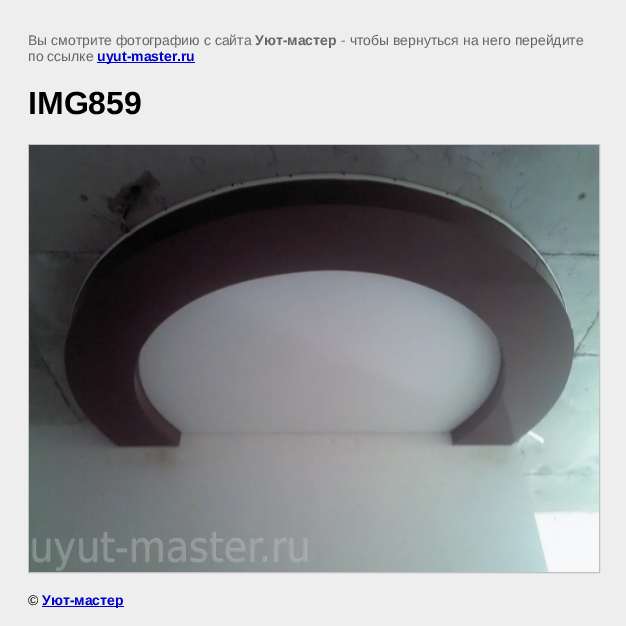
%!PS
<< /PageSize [626 626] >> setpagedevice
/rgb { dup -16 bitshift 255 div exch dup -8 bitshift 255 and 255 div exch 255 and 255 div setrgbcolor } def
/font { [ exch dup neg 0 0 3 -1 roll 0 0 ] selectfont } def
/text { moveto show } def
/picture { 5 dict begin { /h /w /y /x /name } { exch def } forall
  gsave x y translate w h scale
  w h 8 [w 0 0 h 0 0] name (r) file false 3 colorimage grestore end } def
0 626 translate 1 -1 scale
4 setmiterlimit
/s1 { /LiberationSans-Regular 14 font 16#666666 rgb } def
/s2 { /LiberationSans-Bold 14 font 16#666666 rgb } def
/s3 { /LiberationSans-Bold 14 font 16#0000CC rgb } def
/s4 { /LiberationSans-Bold 32 font 16#000000 rgb } def
/s5 { /LiberationSans-Regular 14 font 16#000000 rgb } def
16#EEEEEE rgb
0 0 626 626 rectfill
s1
(Вы смотрите фотографию с сайта) 28 45 text
s2
(Уют-мастер) 255 45 text
s1
(- чтобы вернуться на него перейдите) 341 45 text
(по ссылке) 28 61 text
16#0000CC rgb
97 62 98 1 rectfill
s3
(uyut-master.ru) 97 61 text
s4
(IMG859) 28 114 text
16#C0C0C0 rgb
28.5 144.5 571 428 rectstroke
(pic1.raw) 29 145 570 427 picture
s5
(©) 28 605 text
16#0000CC rgb
42 606 82 1 rectfill
s3
(Уют-мастер) 42 605 text
showpage
